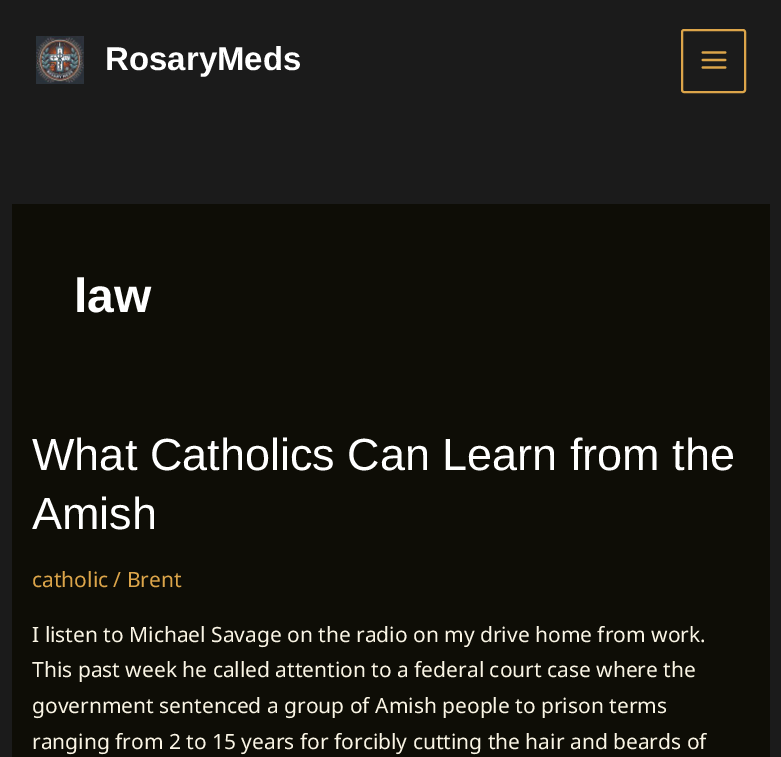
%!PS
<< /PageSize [781 757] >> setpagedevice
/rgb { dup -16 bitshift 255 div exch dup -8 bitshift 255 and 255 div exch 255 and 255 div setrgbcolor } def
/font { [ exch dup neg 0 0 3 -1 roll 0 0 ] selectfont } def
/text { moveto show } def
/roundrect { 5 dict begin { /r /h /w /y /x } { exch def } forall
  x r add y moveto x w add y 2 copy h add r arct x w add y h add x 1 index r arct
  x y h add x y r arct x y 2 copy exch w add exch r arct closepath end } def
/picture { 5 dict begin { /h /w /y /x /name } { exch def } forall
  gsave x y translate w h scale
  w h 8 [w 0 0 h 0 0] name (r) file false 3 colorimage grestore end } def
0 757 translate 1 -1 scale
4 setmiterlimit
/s1 { /LiberationSans-Bold 33 font 16#FFFFFF rgb } def
/s2 { /LiberationSans-Bold 48 font 16#FFFFFF rgb } def
/s3 { /LiberationSans-Regular 45 font 16#FFFFFF rgb } def
/s4 { /NotoSansMultani-Regular 21 font 16#DCA54A rgb } def
/s5 { /NotoSansMultani-Regular 21 font 16#FAF5E5 rgb } def
16#1B1B1B rgb
0 0 781 757 rectfill
(pic1.raw) 36 36 48 48 picture
s1
(RosaryMeds) 105 70 text
16#DCA54A rgb
2 setlinewidth
682 30 63 62 2 roundrect stroke
(pic2.raw) 701 51 26 18 picture
16#0E0D06 rgb
12 204 758 553 rectfill
s2
(law) 74 312 text
s3
(What Catholics Can Learn from the) 32 470 text
(Amish) 32 529 text
s4
(catholic / Brent) 32 587 text
s5
(I listen to Michael Savage on the radio on my drive home from work.) 32 642 text
(This past week he called attention to a federal court case where the) 32 677 text
(government sentenced a group of Amish people to prison terms) 32 713 text
(ranging from 2 to 15 years for forcibly cutting the hair and beards of) 32 749 text
showpage
